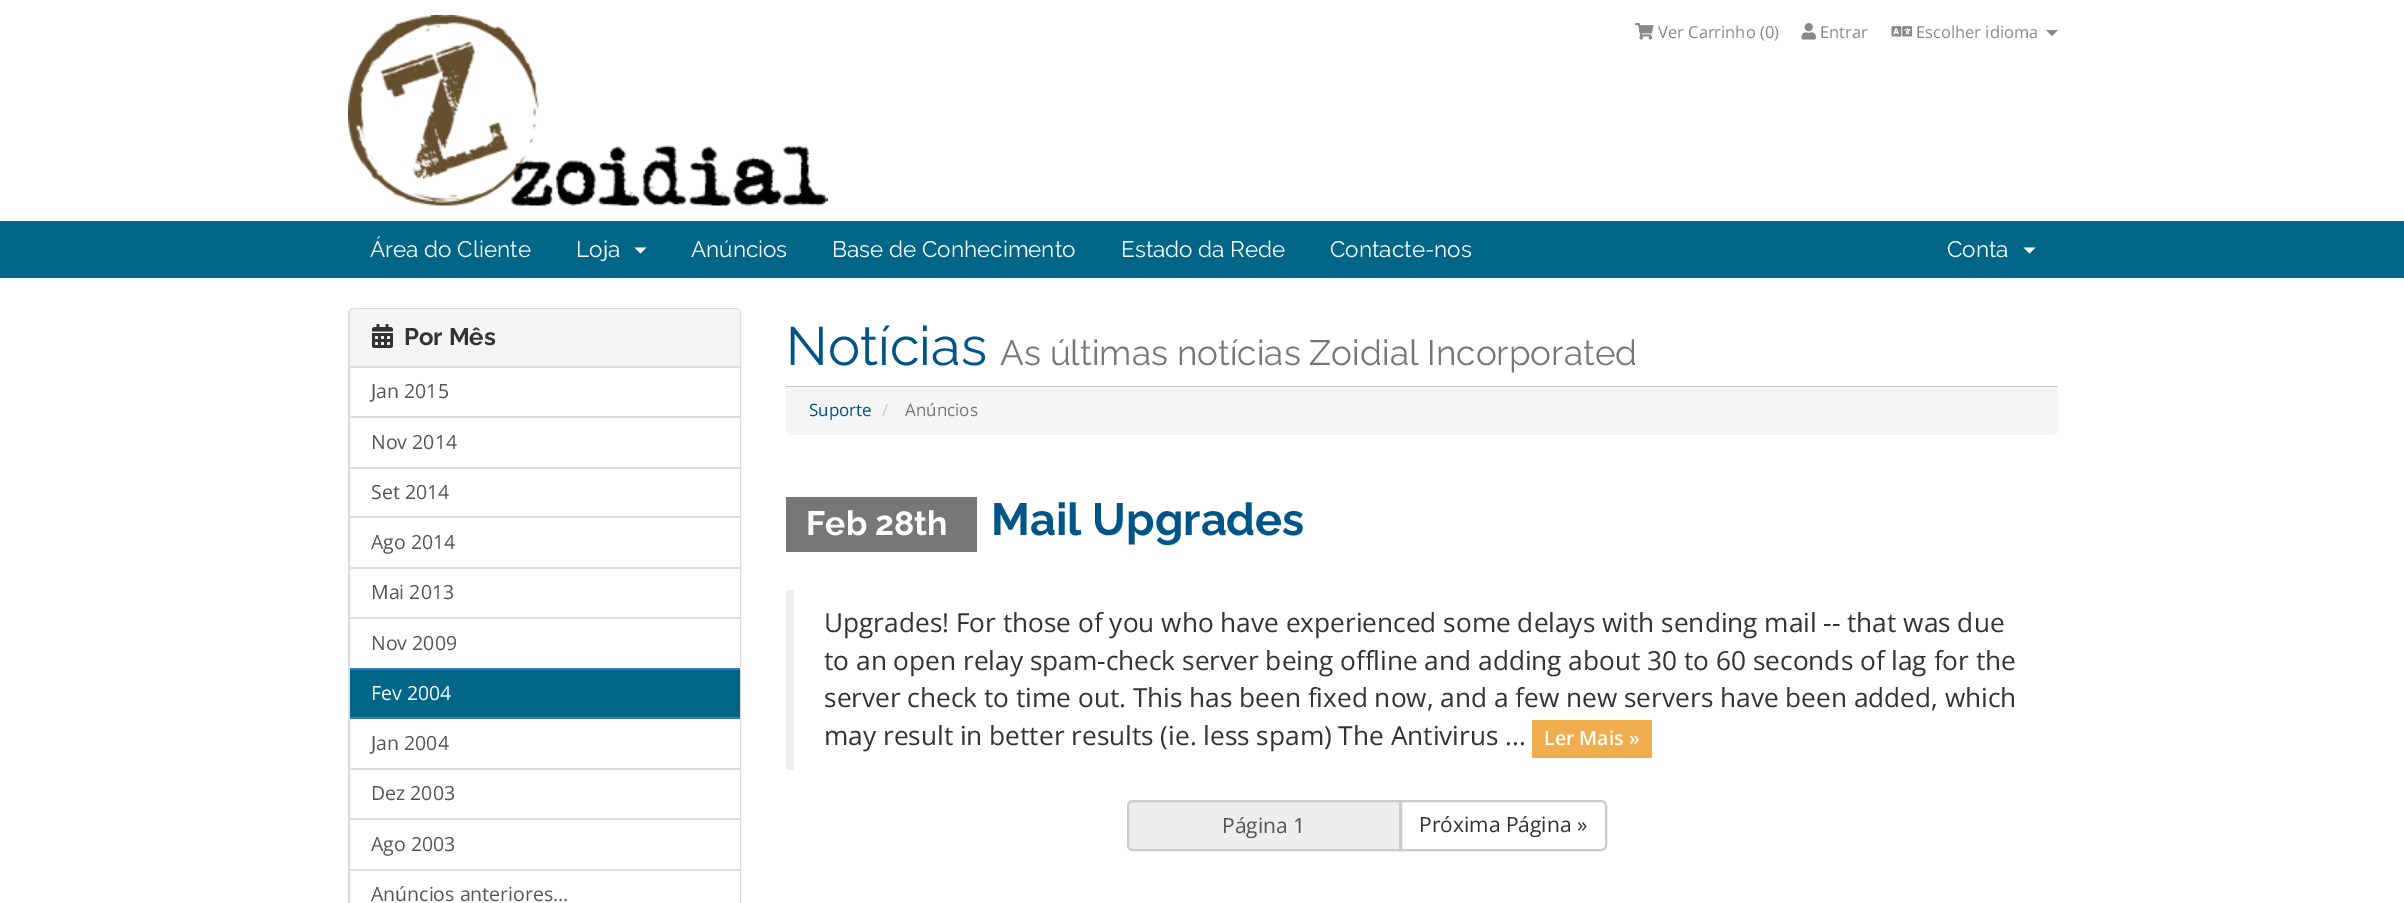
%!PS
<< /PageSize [2404 903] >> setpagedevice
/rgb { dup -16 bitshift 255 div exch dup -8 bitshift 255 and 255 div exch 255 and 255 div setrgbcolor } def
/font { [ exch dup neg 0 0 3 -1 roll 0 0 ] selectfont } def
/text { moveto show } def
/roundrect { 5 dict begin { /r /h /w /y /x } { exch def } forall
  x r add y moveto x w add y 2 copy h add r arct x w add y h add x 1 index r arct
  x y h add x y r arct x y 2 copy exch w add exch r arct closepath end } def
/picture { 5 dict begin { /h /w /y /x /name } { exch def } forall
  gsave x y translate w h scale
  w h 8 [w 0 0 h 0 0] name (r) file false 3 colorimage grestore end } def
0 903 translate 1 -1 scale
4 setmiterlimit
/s1 { /OpenSans-Regular 16.5 font 16#888888 rgb } def
/s2 { /Raleway-Regular 22.5 font 16#FFFFFF rgb } def
/s3 { /Raleway-Bold 24 font 16#333333 rgb } def
/s4 { /OpenSans-Regular 19.5 font 16#555555 rgb } def
/s5 { /OpenSans-Regular 19.5 font 16#FFFFFF rgb } def
/s6 { /Raleway-Regular 54 font 16#005588 rgb } def
/s7 { /Raleway-Regular 35.1 font 16#777777 rgb } def
/s8 { /OpenSans-Regular 17 font 16#005588 rgb } def
/s9 { /OpenSans-Regular 17 font 16#CCCCCC rgb } def
/s10 { /OpenSans-Regular 17 font 16#777777 rgb } def
/s11 { /Raleway-Bold 33.75 font 16#FFFFFF rgb } def
/s12 { /Raleway-Bold 45 font 16#005588 rgb } def
/s13 { /OpenSans-Regular 26.25 font 16#333333 rgb } def
/s14 { /OpenSans-SemiBold 19.5 font 16#FFFFFF rgb } def
/s15 { /OpenSans-Regular 21 font 16#555555 rgb } def
/s16 { /OpenSans-Regular 21 font 16#333333 rgb } def
16#FFFFFF rgb
0 0 2404 903 rectfill
(pic1.raw) 348 15 480 191 picture
(pic2.raw) 1635 23 19 17 picture
s1
(Ver Carrinho \(0\)) 1658 38 text
(pic3.raw) 1801 23 15 17 picture
(Entrar) 1820 38 text
(pic4.raw) 1891 26 22 11 picture
(Escolher idioma) 1916 38 text
2046 30 moveto 2058 30 lineto 2052 36 lineto closepath fill
16#006687 rgb
0 221 2404 57 rectfill
s2
(Área do Cliente) 370 257 text
(Loja) 576 257 text
634.5 247.5 moveto 646.5 247.5 lineto 640.5 253.5 lineto closepath fill
(Anúncios) 691 257 text
(Base de Conhecimento) 832 257 text
(Estado da Rede) 1121 257 text
(Contacte-nos) 1330 257 text
(Conta) 1947 257 text
2023.5 247.5 moveto 2035.5 247.5 lineto 2029.5 253.5 lineto closepath fill
16#DDDDDD rgb
2 setlinewidth
349 309 391 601 5 roundrect stroke
16#F5F5F5 rgb
355 309 moveto 735 309 lineto 738 309 740 311 740 314 curveto 740 368 lineto 350 368 lineto 350 314 lineto 350 311 352 309 355 309 curveto closepath fill
16#DDDDDD rgb
350 366 390 2 rectfill
(pic5.raw) 372 324 21 24 picture
s3
(Por Mês) 404 345 text
16#FFFFFF rgb
739 368 1 48 rectfill
s4
(Jan 2015) 371 398 text
16#FFFFFF rgb
739 418 1 49 rectfill
16#DDDDDD rgb
350 416 390 2 rectfill
s4
(Nov 2014) 371 449 text
16#FFFFFF rgb
739 469 1 47 rectfill
16#DDDDDD rgb
350 467 390 2 rectfill
350 516 390 2 rectfill
s4
(Set 2014) 371 499 text
16#FFFFFF rgb
739 518 1 49 rectfill
16#DDDDDD rgb
350 567 390 2 rectfill
s4
(Ago 2014) 371 549 text
16#FFFFFF rgb
739 569 1 48 rectfill
s4
(Mai 2013) 371 599 text
16#FFFFFF rgb
739 619 1 49 rectfill
16#DDDDDD rgb
350 617 390 2 rectfill
s4
(Nov 2009) 371 650 text
16#006687 rgb
350 670 390 47 rectfill
16#337AB7 rgb
350 668 390 2 rectfill
350 717 390 2 rectfill
s5
(Fev 2004) 371 700 text
739 719 1 49 rectfill
16#DDDDDD rgb
350 768 390 2 rectfill
s4
(Jan 2004) 371 750 text
16#FFFFFF rgb
739 770 1 48 rectfill
s4
(Dez 2003) 371 800 text
16#FFFFFF rgb
739 820 1 49 rectfill
16#DDDDDD rgb
350 818 390 2 rectfill
s4
(Ago 2003) 371 851 text
16#FFFFFF rgb
739 871 1 32 rectfill
16#DDDDDD rgb
350 869 390 2 rectfill
s4
(Anúncios anteriores...) 371 901 text
16#CCCCCC rgb
786 386 1272 1 rectfill
s6
(Notícias) 786 365 text
s7
(As últimas notícias Zoidial Incorporated) 1000 365 text
16#F5F5F5 rgb
786 387 moveto 2058 387 lineto 2058 429 lineto 2058 432.5 2055.5 435 2052 435 curveto 792 435 lineto 788.5 435 786 432.5 786 429 curveto closepath fill
s8
(Suporte) 809 416 text
s9
(/) 882 416 text
s10
(Anúncios) 905 416 text
786 497 191 55 rectfill
s11
(Feb 28th) 806 535 text
s12
(Mail Upgrades) 991 535 text
16#EEEEEE rgb
786 590 8 180 rectfill
s13
(Upgrades! For those of you who have experienced some delays with sending mail -- that was due) 824 632 text
(to an open relay spam-check server being offline and adding about 30 to 60 seconds of lag for the) 824 670 text
(server check to time out. This has been fixed now, and a few new servers have been added, which) 824 707 text
(may result in better results \(ie. less spam\) The Antivirus ...) 824 745 text
16#F0AD4E rgb
1532 720 120 38 rectfill
s14
(Ler Mais ») 1544 745 text
16#EEEEEE rgb
1133 801 moveto 1400 801 lineto 1400 850 lineto 1133 850 lineto 1130 850 1128 848 1128 845 curveto 1128 806 lineto 1128 803 1130 801 1133 801 curveto closepath gsave fill grestore
16#CCCCCC rgb
stroke
s15
(Página 1) 1222 833 text
16#FFFFFF rgb
1401 801 moveto 1601 801 lineto 1604 801 1606 803 1606 806 curveto 1606 845 lineto 1606 848 1604 850 1601 850 curveto 1401 850 lineto closepath gsave fill grestore
16#CCCCCC rgb
stroke
s16
(Próxima Página ») 1419 832 text
showpage
